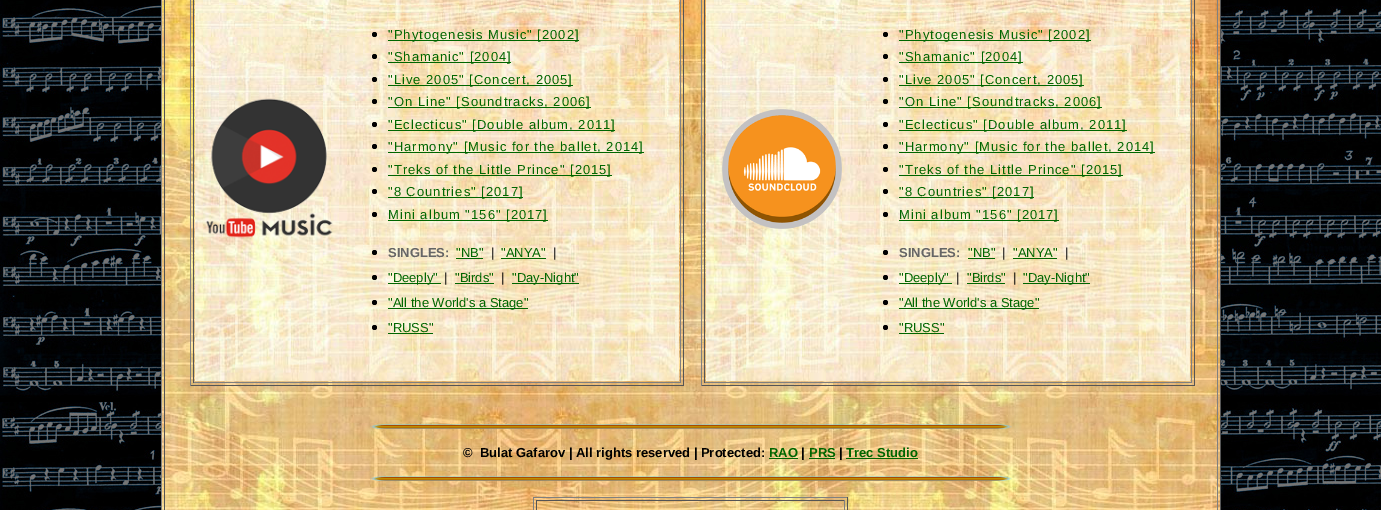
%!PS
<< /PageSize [1381 510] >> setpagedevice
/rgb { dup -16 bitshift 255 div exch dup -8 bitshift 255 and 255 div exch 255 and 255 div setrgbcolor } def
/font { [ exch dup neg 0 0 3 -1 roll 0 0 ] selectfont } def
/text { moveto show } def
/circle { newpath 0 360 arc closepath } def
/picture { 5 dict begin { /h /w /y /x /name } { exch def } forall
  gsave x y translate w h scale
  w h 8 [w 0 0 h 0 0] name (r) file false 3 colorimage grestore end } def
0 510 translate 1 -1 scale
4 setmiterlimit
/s1 { /LiberationSans-Bold 13 font 16#666666 rgb } def
/s2 { /LiberationSans-Regular 13 font 16#006600 rgb } def
/s3 { /LiberationSans-Regular 13 font 16#000000 rgb } def
/s4 { /LiberationSans-Bold 13 font 16#000000 rgb } def
/s5 { /LiberationSans-Bold 13 font 16#006600 rgb } def
16#FFFFFF rgb
0 0 1381 510 rectfill
(pic1.raw) 0 0 1381 510 picture
(pic2.raw) 162 0 1058 510 picture
16#555555 rgb
1220 0 1 510 rectfill
16#808080 rgb
161 0 1 510 rectfill
1217 0 1 510 rectfill
16#555555 rgb
164 0 1 510 rectfill
683 0 1 386 rectfill
190 385 494 1 rectfill
16#808080 rgb
190 0 1 386 rectfill
680 0 1 383 rectfill
193 382 488 1 rectfill
16#555555 rgb
193 0 1 383 rectfill
(pic3.raw) 195 0 484 381 picture
(pic4.raw) 206 98 127 140 picture
16#000000 rgb
374.5 34.5 2.5 circle fill
16#006600 rgb
388 40 191 1 rectfill
/LiberationSans-Regular 13 font
388 39 moveto 1 0 ("Phytogenesis Music" [2002]) ashow
16#000000 rgb
374.5 56.5 2.5 circle fill
16#006600 rgb
388 62 123 1 rectfill
388 61 moveto 1 0 ("Shamanic" [2004]) ashow
16#000000 rgb
374.5 79.5 2.5 circle fill
16#006600 rgb
388 85 185 1 rectfill
388 84 moveto 1 0 ("Live 2005" [Concert, 2005]) ashow
16#000000 rgb
374.5 101.5 2.5 circle fill
16#006600 rgb
388 107 203 1 rectfill
388 106 moveto 1 0 ("On Line" [Soundtracks, 2006]) ashow
16#000000 rgb
374.5 124.5 2.5 circle fill
16#006600 rgb
388 130 227 1 rectfill
388 129 moveto 1 0 ("Eclecticus" [Double album, 2011]) ashow
16#000000 rgb
374.5 146.5 2.5 circle fill
16#006600 rgb
388 152 256 1 rectfill
388 151 moveto 1 0 ("Harmony" [Music for the ballet, 2014]) ashow
16#000000 rgb
374.5 169.5 2.5 circle fill
16#006600 rgb
388 175 224 1 rectfill
388 174 moveto 1 0 ("Treks of the Little Prince" [2015]) ashow
16#000000 rgb
374.5 191.5 2.5 circle fill
16#006600 rgb
388 197 135 1 rectfill
388 196 moveto 1 0 ("8 Countries" [2017]) ashow
16#000000 rgb
374.5 214.5 2.5 circle fill
16#006600 rgb
388 220 160 1 rectfill
388 219 moveto 1 0 (Mini album "156" [2017]) ashow
16#000000 rgb
374.5 252.5 2.5 circle fill
s1
(SINGLES:) 388 257 text
s2
("NB") 456 257 text
456 258 27 1 rectfill
s3
(|) 491 257 text
s2
("ANYA") 501 257 text
501 258 45 1 rectfill
s3
(|) 553 257 text
374.5 277.5 2.5 circle fill
16#006600 rgb
388 283 53 1 rectfill
("Deeply") 388 282 text
s3
(|) 444 282 text
s2
("Birds") 455 282 text
455 283 39 1 rectfill
s3
(|) 501 282 text
16#006600 rgb
512 283 67 1 rectfill
("Day-Night") 512 282 text
16#000000 rgb
374.5 302.5 2.5 circle fill
16#006600 rgb
388 308 140 1 rectfill
("All the World's a Stage") 388 307 text
16#000000 rgb
374.5 327.5 2.5 circle fill
s2
("RUSS") 388 332 text
388 333 45 1 rectfill
16#555555 rgb
1194 0 1 386 rectfill
701 385 494 1 rectfill
16#808080 rgb
701 0 1 386 rectfill
1191 0 1 383 rectfill
704 382 488 1 rectfill
16#555555 rgb
704 0 1 383 rectfill
(pic3.raw) 706 0 484 381 picture
(pic5.raw) 722 109 120 120 picture
16#000000 rgb
885.5 34.5 2.5 circle fill
16#006600 rgb
899 40 192 1 rectfill
899 39 moveto 1 0 ("Phytogenesis Music" [2002]) ashow
16#000000 rgb
885.5 56.5 2.5 circle fill
16#006600 rgb
899 62 124 1 rectfill
899 61 moveto 1 0 ("Shamanic" [2004]) ashow
16#000000 rgb
885.5 79.5 2.5 circle fill
16#006600 rgb
899 85 185 1 rectfill
899 84 moveto 1 0 ("Live 2005" [Concert, 2005]) ashow
16#000000 rgb
885.5 101.5 2.5 circle fill
16#006600 rgb
899 107 203 1 rectfill
899 106 moveto 1 0 ("On Line" [Soundtracks, 2006]) ashow
16#000000 rgb
885.5 124.5 2.5 circle fill
16#006600 rgb
899 130 228 1 rectfill
899 129 moveto 1 0 ("Eclecticus" [Double album, 2011]) ashow
16#000000 rgb
885.5 146.5 2.5 circle fill
16#006600 rgb
899 152 256 1 rectfill
899 151 moveto 1 0 ("Harmony" [Music for the ballet, 2014]) ashow
16#000000 rgb
885.5 169.5 2.5 circle fill
16#006600 rgb
899 175 224 1 rectfill
899 174 moveto 1 0 ("Treks of the Little Prince" [2015]) ashow
16#000000 rgb
885.5 191.5 2.5 circle fill
16#006600 rgb
899 197 135 1 rectfill
899 196 moveto 1 0 ("8 Countries" [2017]) ashow
16#000000 rgb
885.5 214.5 2.5 circle fill
16#006600 rgb
899 220 160 1 rectfill
899 219 moveto 1 0 (Mini album "156" [2017]) ashow
16#000000 rgb
885.5 252.5 2.5 circle fill
s1
(SINGLES:) 899 257 text
s2
("NB") 968 257 text
968 258 27 1 rectfill
s3
(|) 1002 257 text
s2
("ANYA") 1013 257 text
1013 258 44 1 rectfill
s3
(|) 1065 257 text
885.5 277.5 2.5 circle fill
16#006600 rgb
899 283 53 1 rectfill
("Deeply") 899 282 text
s3
(|) 956 282 text
s2
("Birds") 967 282 text
967 283 38 1 rectfill
s3
(|) 1013 282 text
16#006600 rgb
1023 283 67 1 rectfill
("Day-Night") 1023 282 text
16#000000 rgb
885.5 302.5 2.5 circle fill
16#006600 rgb
899 308 140 1 rectfill
("All the World's a Stage") 899 307 text
16#000000 rgb
885.5 327.5 2.5 circle fill
s2
("RUSS") 899 332 text
899 333 45 1 rectfill
(pic6.raw) 370 424 642 5 picture
s4
(©  Bulat Gafarov | All rights reserved | Protected:) 463 457 text
s5
(RAO) 769 457 text
769 458 29 1 rectfill
s4
(|) 801 457 text
s5
(PRS) 809 457 text
809 458 26 1 rectfill
s4
(|) 839 457 text
s5
(Trec Studio) 846 457 text
846 458 72 1 rectfill
(pic7.raw) 370 476 642 5 picture
16#808080 rgb
533 497 315 1 rectfill
16#555555 rgb
847 497 1 13 rectfill
16#808080 rgb
533 497 1 13 rectfill
16#555555 rgb
536 500 309 1 rectfill
16#808080 rgb
844 500 1 10 rectfill
16#555555 rgb
536 500 1 10 rectfill
showpage
